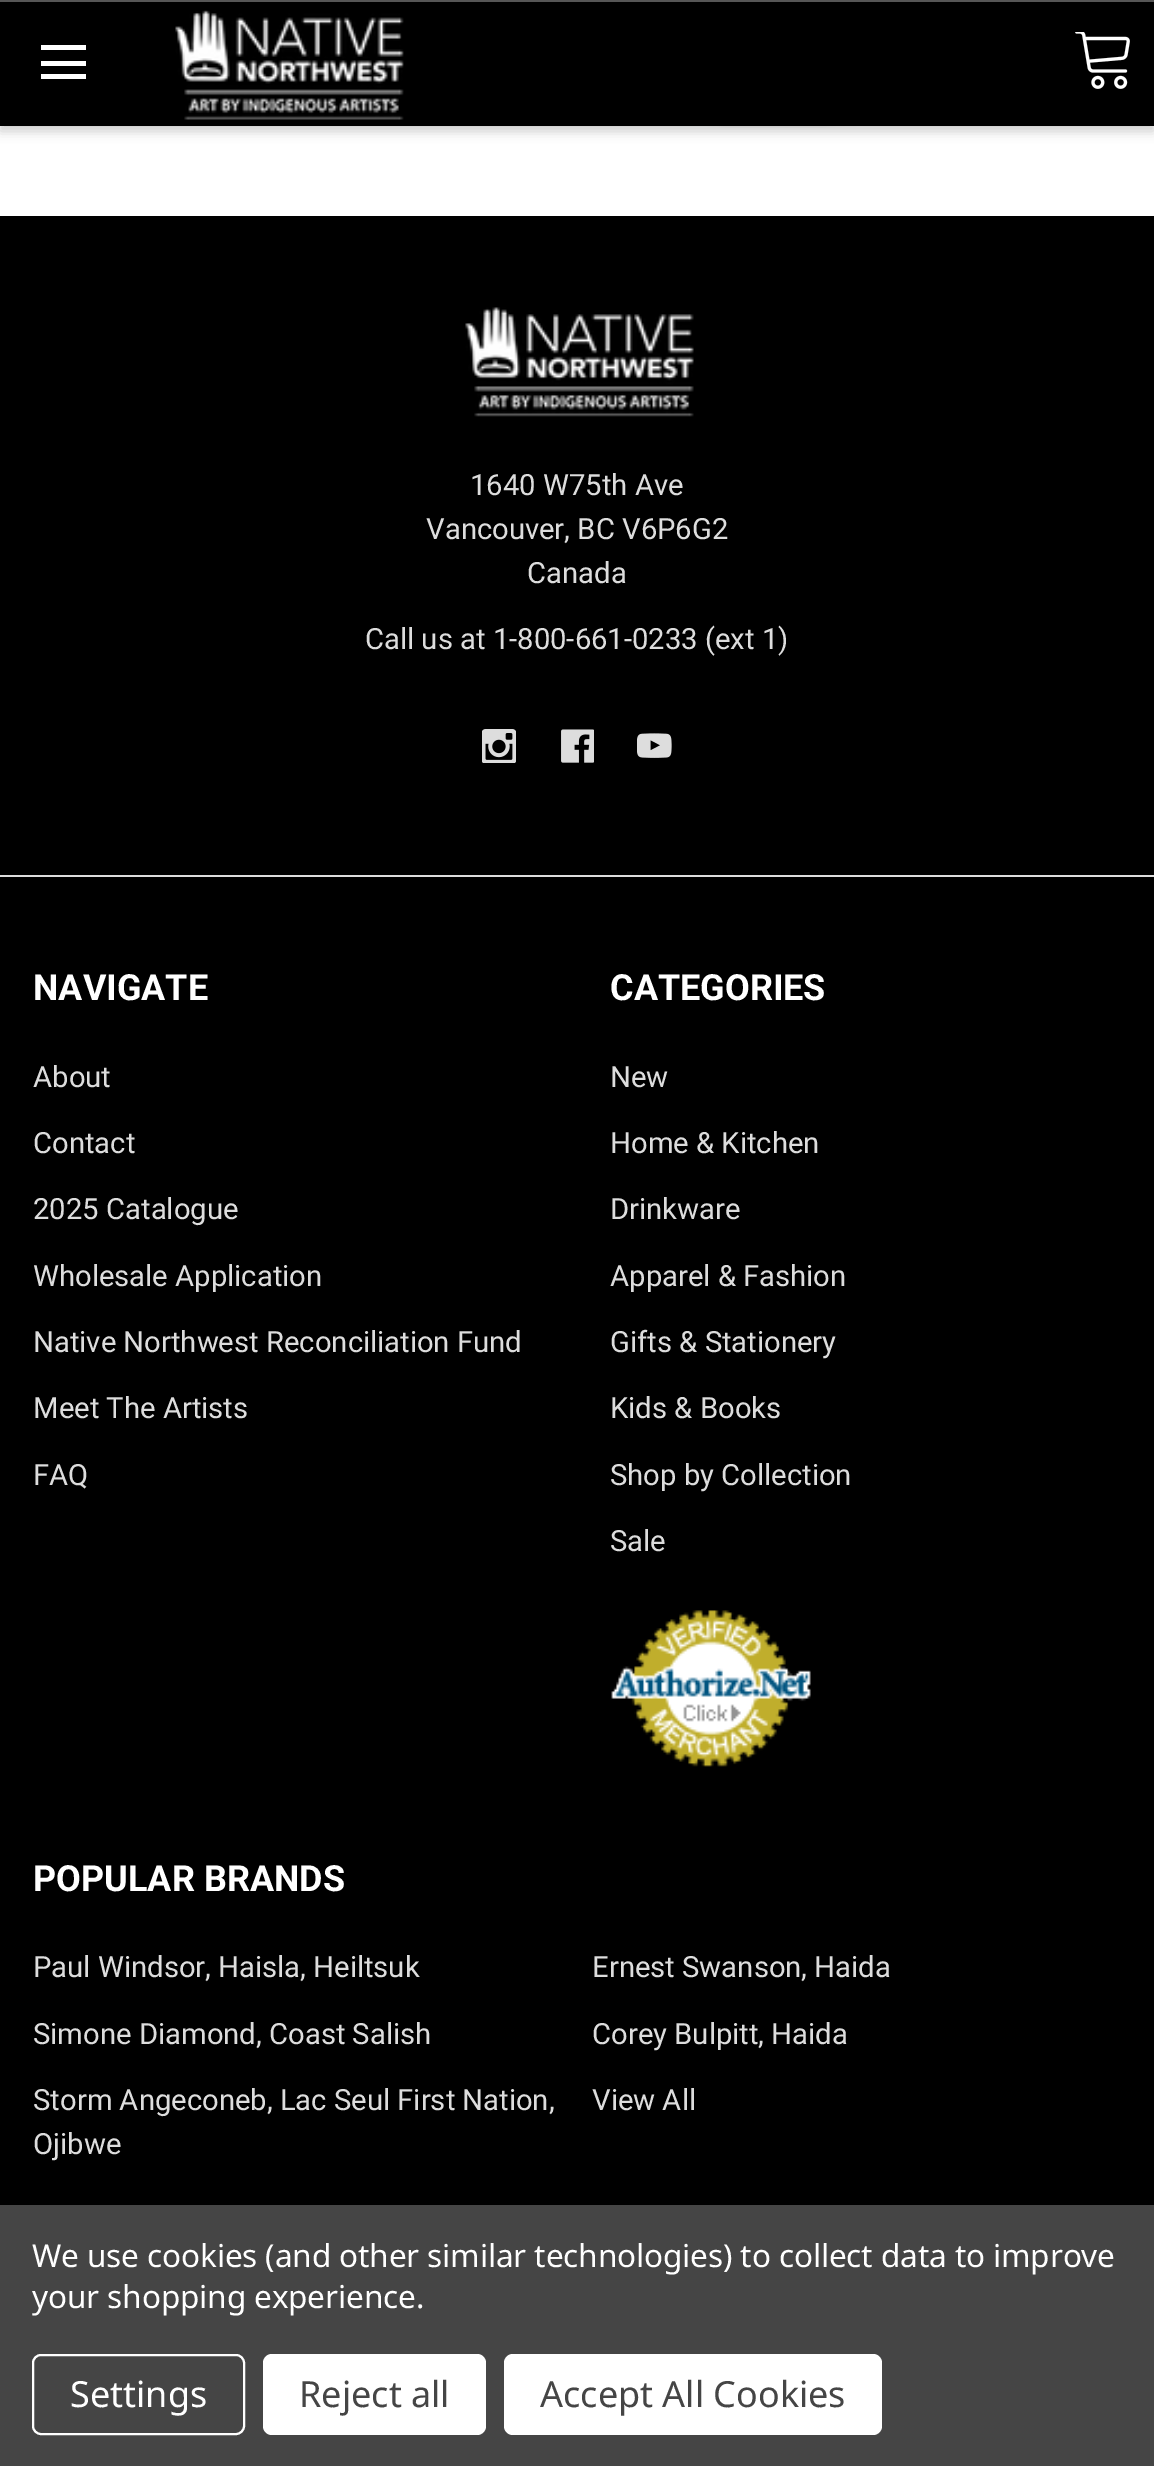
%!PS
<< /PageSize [1154 2466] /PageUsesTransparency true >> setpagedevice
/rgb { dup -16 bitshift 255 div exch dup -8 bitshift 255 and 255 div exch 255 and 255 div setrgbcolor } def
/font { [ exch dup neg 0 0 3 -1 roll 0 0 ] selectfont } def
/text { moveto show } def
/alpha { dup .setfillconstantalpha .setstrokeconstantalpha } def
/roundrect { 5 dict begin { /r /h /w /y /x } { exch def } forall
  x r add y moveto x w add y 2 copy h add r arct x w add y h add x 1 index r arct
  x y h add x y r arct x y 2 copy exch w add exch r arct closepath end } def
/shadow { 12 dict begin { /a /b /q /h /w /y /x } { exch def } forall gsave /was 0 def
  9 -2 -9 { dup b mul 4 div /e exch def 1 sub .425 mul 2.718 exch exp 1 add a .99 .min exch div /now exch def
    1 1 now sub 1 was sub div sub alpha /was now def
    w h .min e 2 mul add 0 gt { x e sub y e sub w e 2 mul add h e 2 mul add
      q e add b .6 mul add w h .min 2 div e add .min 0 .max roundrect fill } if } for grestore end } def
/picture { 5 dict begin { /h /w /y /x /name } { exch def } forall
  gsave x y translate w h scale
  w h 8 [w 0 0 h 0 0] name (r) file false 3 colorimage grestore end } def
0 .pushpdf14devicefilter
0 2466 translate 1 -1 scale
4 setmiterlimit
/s1 { /Roboto-Regular 29.25 font 16#DDDDDD rgb } def
/s2 { /Roboto-Bold 36 font 16#FFFFFF rgb } def
/s3 { /NotoSans-Regular 36 font 16#FFFFFF rgb } def
/s4 { /NotoSans-Regular 36 font 16#454545 rgb } def
16#FFFFFF rgb
0 0 1154 2466 rectfill
(pic3.raw) 398 126 756 2 picture
16#000000 rgb
0 5 1154 126 0 5.5 0.2 shadow
0 2 1154 124 rectfill
16#565656 rgb
0 0 1154 2 rectfill
16#FFFFFF rgb
41 61 45 5 rectfill
41 45 45 5 rectfill
41 74 45 5 rectfill
(pic1.raw) 175 10 229 110 picture
(pic2.raw) 1075 32 55 57 picture
16#000000 rgb
0 216 1154 1989 rectfill
16#DCDCDC rgb
0 875 1154 2 rectfill
(pic4.raw) 465 307 229 110 picture
s1
(1640 W75th Ave) 470 495 text
(Vancouver, BC V6P6G2) 426 539 text
(Canada) 527 583 text
(Call us at 1-800-661-0233 \(ext 1\)) 365 649 text
(pic5.raw) 482 729 34 34 picture
(pic6.raw) 561 729 33 34 picture
(pic7.raw) 637 733 35 25 picture
s2
(NAVIGATE) 33 1000 text
s1
(About) 33 1087 text
(Contact) 33 1153 text
(2025 Catalogue) 33 1219 text
(Wholesale Application) 33 1286 text
(Native Northwest Reconciliation Fund) 33 1352 text
(Meet The Artists) 33 1418 text
(FAQ) 33 1485 text
s2
(CATEGORIES) 610 1000 text
s1
(New) 610 1087 text
(Home & Kitchen) 610 1153 text
(Drinkware) 610 1219 text
(Apparel & Fashion) 610 1286 text
(Gifts & Stationery) 610 1352 text
(Kids & Books) 610 1418 text
(Shop by Collection) 610 1485 text
(Sale) 610 1551 text
(pic8.raw) 611 1610 200 157 picture
s2
(POPULAR BRANDS) 33 1891 text
s1
(Paul Windsor, Haisla, Heiltsuk) 33 1977 text
(Ernest Swanson, Haida) 592 1977 text
(Simone Diamond, Coast Salish) 33 2044 text
(Corey Bulpitt, Haida) 592 2044 text
(Storm Angeconeb, Lac Seul First Nation,) 33 2110 text
(Ojibwe) 33 2154 text
(View All) 592 2110 text
16#454545 rgb
0 2205 1154 261 rectfill
/NotoSans-Regular 31.5 font
16#FFFFFF rgb
32 2267 moveto -0.1 0 (We use cookies \(and other similar technologies\) to collect data to improve) ashow
32 2308 moveto -0.1 0 (your shopping experience.) ashow
2 setlinewidth
33 2355 211 79 8 roundrect stroke
s3
(Settings) 70 2407 text
263 2354 223 81 9 roundrect fill
s4
(Reject all) 299 2407 text
16#FFFFFF rgb
504 2354 378 81 9 roundrect fill
s4
(Accept All Cookies) 540 2407 text
.poppdf14devicefilter showpage
